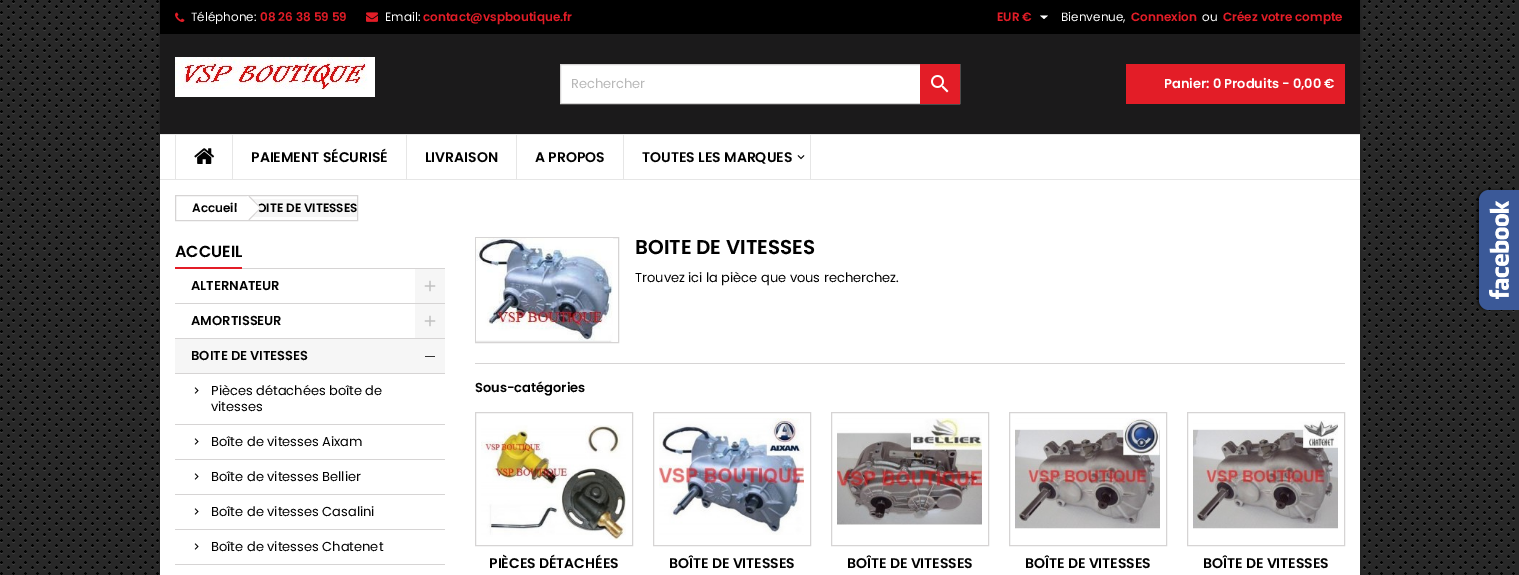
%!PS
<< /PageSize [1519 575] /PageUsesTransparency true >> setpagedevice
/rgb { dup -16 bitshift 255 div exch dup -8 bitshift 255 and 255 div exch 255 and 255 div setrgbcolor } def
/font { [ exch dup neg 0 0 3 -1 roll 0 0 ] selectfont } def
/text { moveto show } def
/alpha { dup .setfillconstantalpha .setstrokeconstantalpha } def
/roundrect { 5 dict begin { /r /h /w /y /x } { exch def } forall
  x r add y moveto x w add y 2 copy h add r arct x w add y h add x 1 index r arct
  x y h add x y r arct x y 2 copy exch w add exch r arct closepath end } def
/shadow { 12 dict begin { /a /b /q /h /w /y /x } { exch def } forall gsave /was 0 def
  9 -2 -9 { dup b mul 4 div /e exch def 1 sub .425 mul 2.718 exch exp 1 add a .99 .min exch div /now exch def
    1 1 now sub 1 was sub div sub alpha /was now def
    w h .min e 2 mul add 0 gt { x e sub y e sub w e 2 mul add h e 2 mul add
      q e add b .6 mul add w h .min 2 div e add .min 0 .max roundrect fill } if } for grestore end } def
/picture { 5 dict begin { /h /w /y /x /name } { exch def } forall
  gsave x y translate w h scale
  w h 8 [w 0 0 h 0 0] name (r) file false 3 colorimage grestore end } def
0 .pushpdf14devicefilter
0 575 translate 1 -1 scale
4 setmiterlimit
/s1 { /Poppins-Regular 12 font 16#FFFFFF rgb } def
/s2 { /Poppins-SemiBold 12 font 16#E31D27 rgb } def
/s3 { /Poppins-Regular 13 font 16#B7B7B7 rgb } def
/s4 { /Poppins-SemiBold 13 font 16#FFFFFF rgb } def
/s5 { /Poppins-SemiBold 14 font 16#000000 rgb } def
/s6 { /Poppins-SemiBold 12 font 16#000000 rgb } def
/s7 { /Poppins-SemiBold 16 font 16#000000 rgb } def
/s8 { /Poppins-SemiBold 13 font 16#000000 rgb } def
/s9 { /Poppins-Regular 13 font 16#000000 rgb } def
/s10 { /Poppins-SemiBold 20 font 16#000000 rgb } def
16#282828 rgb
0 0 1519 575 rectfill
(pic1.raw) 0 0 1515 575 picture
16#000000 rgb
160 0 1200 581 0 2 0.2 shadow
16#FFFFFF rgb
160 135 1200 440 rectfill
16#000000 rgb
160 0 1200 34 rectfill
(pic2.raw) 175 12 10 10 picture
s1
(Téléphone:) 191 21 text
s2
(08 26 38 59 59) 260 21 text
(pic3.raw) 366 12 12 10 picture
s1
(Email:) 385 21 text
s2
(contact@vspboutique.fr) 423 21 text
(EUR €) 997 21 text
16#FFFFFF rgb
1040 15.5 moveto 1048 15.5 lineto 1044 19 lineto closepath fill
s1
(Bienvenue,) 1061 21 text
s2
(Connexion) 1131 21 text
s1
(ou) 1202 21 text
s2
(Créez votre compte) 1223 21 text
16#1B1A1B rgb
160 34 1200 100 rectfill
(pic4.raw) 175 57 200 40 picture
16#FFFFFF rgb
561 65 359 38 rectfill
16#D6D4D4 rgb
560.5 64.5 399 39 rectstroke
s3
(Rechercher) 571 88 text
16#E31D27 rgb
920 64 40 40 rectfill
(pic5.raw) 931 75 18 18 picture
1126 64 219 40 rectfill
s4
(Panier: 0 Produits - 0,00 €) 1164 88 text
16#E6E6E6 rgb
160 134 1200 1 rectfill
160 179 1200 1 rectfill
175 135 1 44 rectfill
(pic6.raw) 194 148 21 16 picture
232 135 1 44 rectfill
s5
(PAIEMENT SÉCURISÉ) 251 162 text
16#E6E6E6 rgb
406 135 1 44 rectfill
s5
(LIVRAISON) 425 162 text
16#E6E6E6 rgb
516 135 1 44 rectfill
s5
(A PROPOS) 535 162 text
16#E6E6E6 rgb
810 135 1 44 rectfill
623 135 1 44 rectfill
s5
(TOUTES LES MARQUES) 642 162 text
(pic7.raw) 797 155 8 5 picture
16#D6D4D4 rgb
175.5 195.5 182 25 rectstroke
s6
(Accueil) 192 212 text
16#F6F6F6 rgb
252 199 105 18 rectfill
s6
(OITE DE VITESSES) 257 212 text
16#FFFFFF rgb
250 196.5 moveto 260 206.5 lineto 260.5 207.5 260.5 208.5 260 209.5 curveto 250 219.5 lineto 249 220 248 220 247 219.5 curveto 237 209.5 lineto 236.5 208.5 236.5 207.5 237 206.5 curveto 247 196.5 lineto 248 196 249 196 250 196.5 curveto closepath fill
16#D6D4D4 rgb
249.5 196 moveto 260.5 207.5 lineto 260 208 lineto 248.5 196.5 lineto closepath 260 208 moveto 260.5 208.5 lineto 249.5 220 lineto 248.5 219.5 lineto closepath fill
242 268 203 1 rectfill
16#E31D27 rgb
175 267 67 2 rectfill
s7
(ACCUEIL) 175 257 text
16#D6D4D4 rgb
175 303 270 1 rectfill
s8
(ALTERNATEUR) 191 290 text
16#F6F6F6 rgb
415 269 30 34 rectfill
(pic8.raw) 424 280 12 12 picture
16#D6D4D4 rgb
175 338 270 1 rectfill
s8
(AMORTISSEUR) 191 325 text
16#F6F6F6 rgb
415 304 30 34 rectfill
(pic8.raw) 424 315 12 12 picture
175 339 270 34 rectfill
16#D6D4D4 rgb
175 373 270 1 rectfill
s8
(BOITE DE VITESSES) 191 360 text
16#333333 rgb
425 356 10 1 rectfill
16#D6D4D4 rgb
175 424 270 1 rectfill
(pic9.raw) 194 387 5 7 picture
s9
(Pièces détachées boîte de) 211 395 text
(vitesses) 211 411 text
16#D6D4D4 rgb
175 459 270 1 rectfill
(pic9.raw) 194 438 5 7 picture
s9
(Boîte de vitesses Aixam) 211 446 text
16#D6D4D4 rgb
175 494 270 1 rectfill
(pic9.raw) 194 473 5 7 picture
s9
(Boîte de vitesses Bellier) 211 481 text
16#D6D4D4 rgb
175 529 270 1 rectfill
(pic9.raw) 194 508 5 7 picture
s9
(Boîte de vitesses Casalini) 211 516 text
16#D6D4D4 rgb
175 564 270 1 rectfill
(pic9.raw) 194 543 5 7 picture
s9
(Boîte de vitesses Chatenet) 211 551 text
16#D6D4D4 rgb
475.5 237.5 143 105 rectstroke
(pic10.raw) 476 238 137 104 picture
s10
(BOITE DE VITESSES) 635 254 text
s9
(Trouvez ici la pièce que vous recherchez.) 635 282 text
16#D6D4D4 rgb
475 363 870 1 rectfill
s8
(Sous-catégories) 475 392 text
16#D6D4D4 rgb
475.5 412.5 157 133 rectstroke
(pic11.raw) 481 425 145 115 picture
s5
(PIÈCES DÉTACHÉES) 489 568 text
16#D6D4D4 rgb
653.5 412.5 157 133 rectstroke
(pic12.raw) 659 418 145 117 picture
s5
(BOÎTE DE VITESSES) 669 568 text
16#D6D4D4 rgb
831.5 412.5 157 133 rectstroke
(pic13.raw) 837 418 145 107 picture
s5
(BOÎTE DE VITESSES) 847 568 text
16#D6D4D4 rgb
1009.5 412.5 157 133 rectstroke
(pic14.raw) 1015 418 145 111 picture
s5
(BOÎTE DE VITESSES) 1025 568 text
16#D6D4D4 rgb
1187.5 412.5 157 133 rectstroke
(pic15.raw) 1193 420 145 109 picture
s5
(BOÎTE DE VITESSES) 1203 568 text
1477 190 40 120 10 1 0.5 shadow
16#3B5998 rgb
1489 190 moveto 1519 190 lineto 1519 310 lineto 1489 310 lineto 1483.5 310 1479 305.5 1479 300 curveto 1479 200 lineto 1479 194.5 1483.5 190 1489 190 curveto closepath fill
(pic16.raw) 1489 201 20 98 picture
.poppdf14devicefilter showpage
